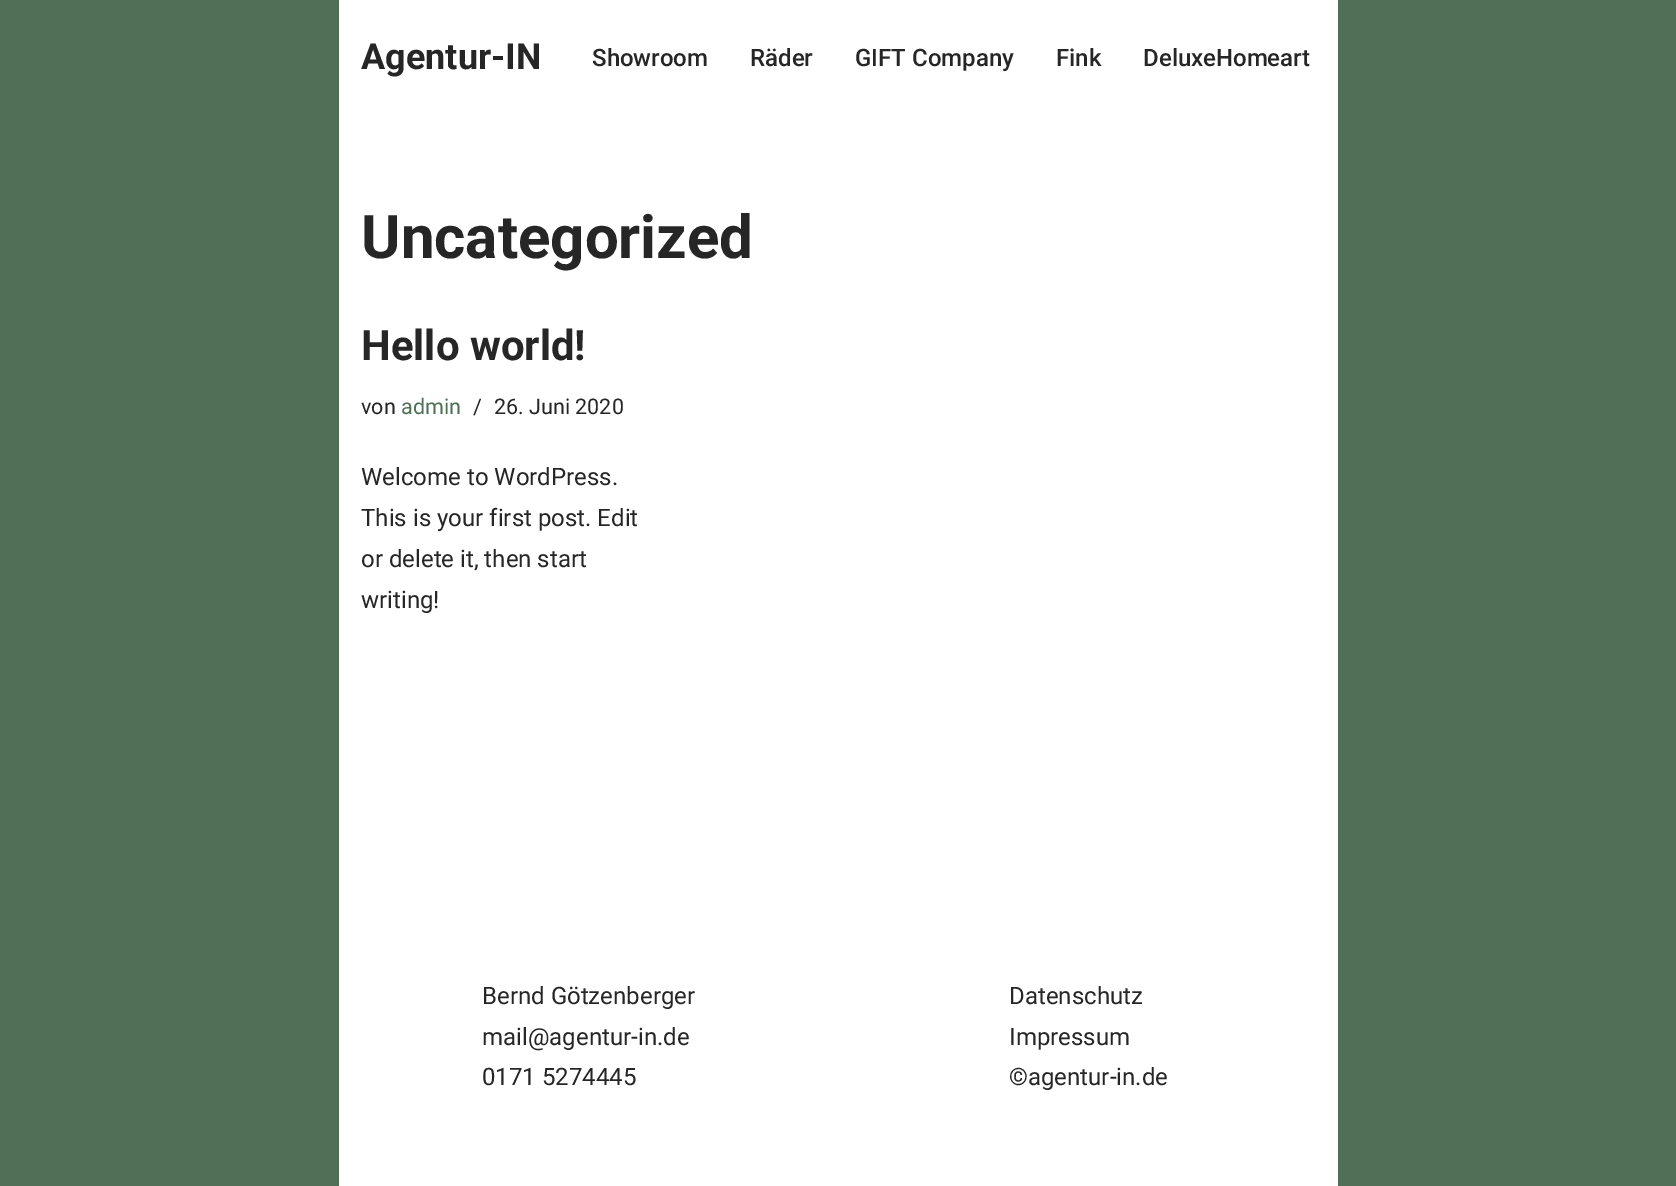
%!PS
<< /PageSize [1676 1186] >> setpagedevice
/rgb { dup -16 bitshift 255 div exch dup -8 bitshift 255 and 255 div exch 255 and 255 div setrgbcolor } def
/font { [ exch dup neg 0 0 3 -1 roll 0 0 ] selectfont } def
/text { moveto show } def
0 1186 translate 1 -1 scale
4 setmiterlimit
/s1 { /Roboto-Bold 36 font 16#272626 rgb } def
/s2 { /Roboto-Medium 24 font 16#272626 rgb } def
/s3 { /Roboto-Bold 60 font 16#272626 rgb } def
/s4 { /Roboto-Bold 42 font 16#272626 rgb } def
/s5 { /Roboto-Regular 21.5 font 16#272626 rgb } def
/s6 { /Roboto-Regular 21.5 font 16#4F6F57 rgb } def
/s7 { /Roboto-Regular 24 font 16#272626 rgb } def
16#4F6F57 rgb
0 0 1676 1186 rectfill
16#FFFFFF rgb
339 0 999 1186 rectfill
s1
(Agentur-IN) 361 69 text
s2
(Showroom) 592 66 text
(Räder) 750 66 text
(GIFT Company) 855 66 text
(Fink) 1056 66 text
(DeluxeHomeart) 1143 66 text
s3
(Uncategorized) 361 258 text
s4
(Hello world!) 361 360 text
s5
(von) 361 414 text
s6
(admin) 401 414 text
s5
(/) 473 414 text
(26. Juni 2020) 494 414 text
s7
(Welcome to WordPress.) 361 485 text
(This is your first post. Edit) 361 526 text
(or delete it, then start) 361 567 text
(writing!) 361 608 text
(Bernd Götzenberger) 482 1004 text
(mail@agentur-in.de) 482 1045 text
(0171 5274445) 482 1085 text
(Datenschutz) 1009 1004 text
(Impressum) 1009 1045 text
(©agentur-in.de) 1009 1085 text
showpage
